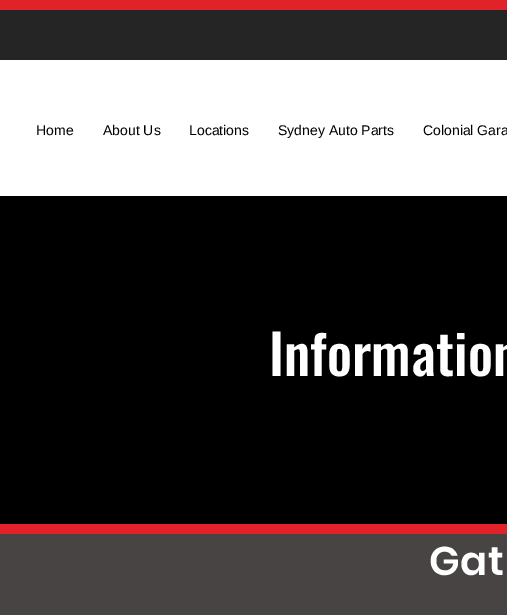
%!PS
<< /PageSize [507 615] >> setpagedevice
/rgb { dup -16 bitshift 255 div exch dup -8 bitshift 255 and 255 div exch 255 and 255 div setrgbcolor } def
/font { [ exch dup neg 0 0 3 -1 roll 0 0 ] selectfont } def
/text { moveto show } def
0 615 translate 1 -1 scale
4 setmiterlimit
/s1 { /LiberationSans-Regular 14 font 16#000000 rgb } def
/s2 { /Oswald-Medium 55 font 16#FFFFFF rgb } def
16#252525 rgb
0 0 507 615 rectfill
16#E12229 rgb
0 0 507 10 rectfill
16#FFFFFF rgb
0 60 507 136 rectfill
s1
(Home) 36 135 text
(About Us) 103 135 text
(Locations) 189 135 text
(Sydney Auto Parts) 278 135 text
(Colonial Gara) 423 135 text
0 196 507 328 rectfill
s2
(Information) 269 376 text
16#484444 rgb
0 534 507 81 rectfill
16#E12229 rgb
0 524 507 10 rectfill
/Poppins-SemiBold 40 font
16#FFFFFF rgb
429 575 moveto 0.5 0 (Gat) ashow
showpage
